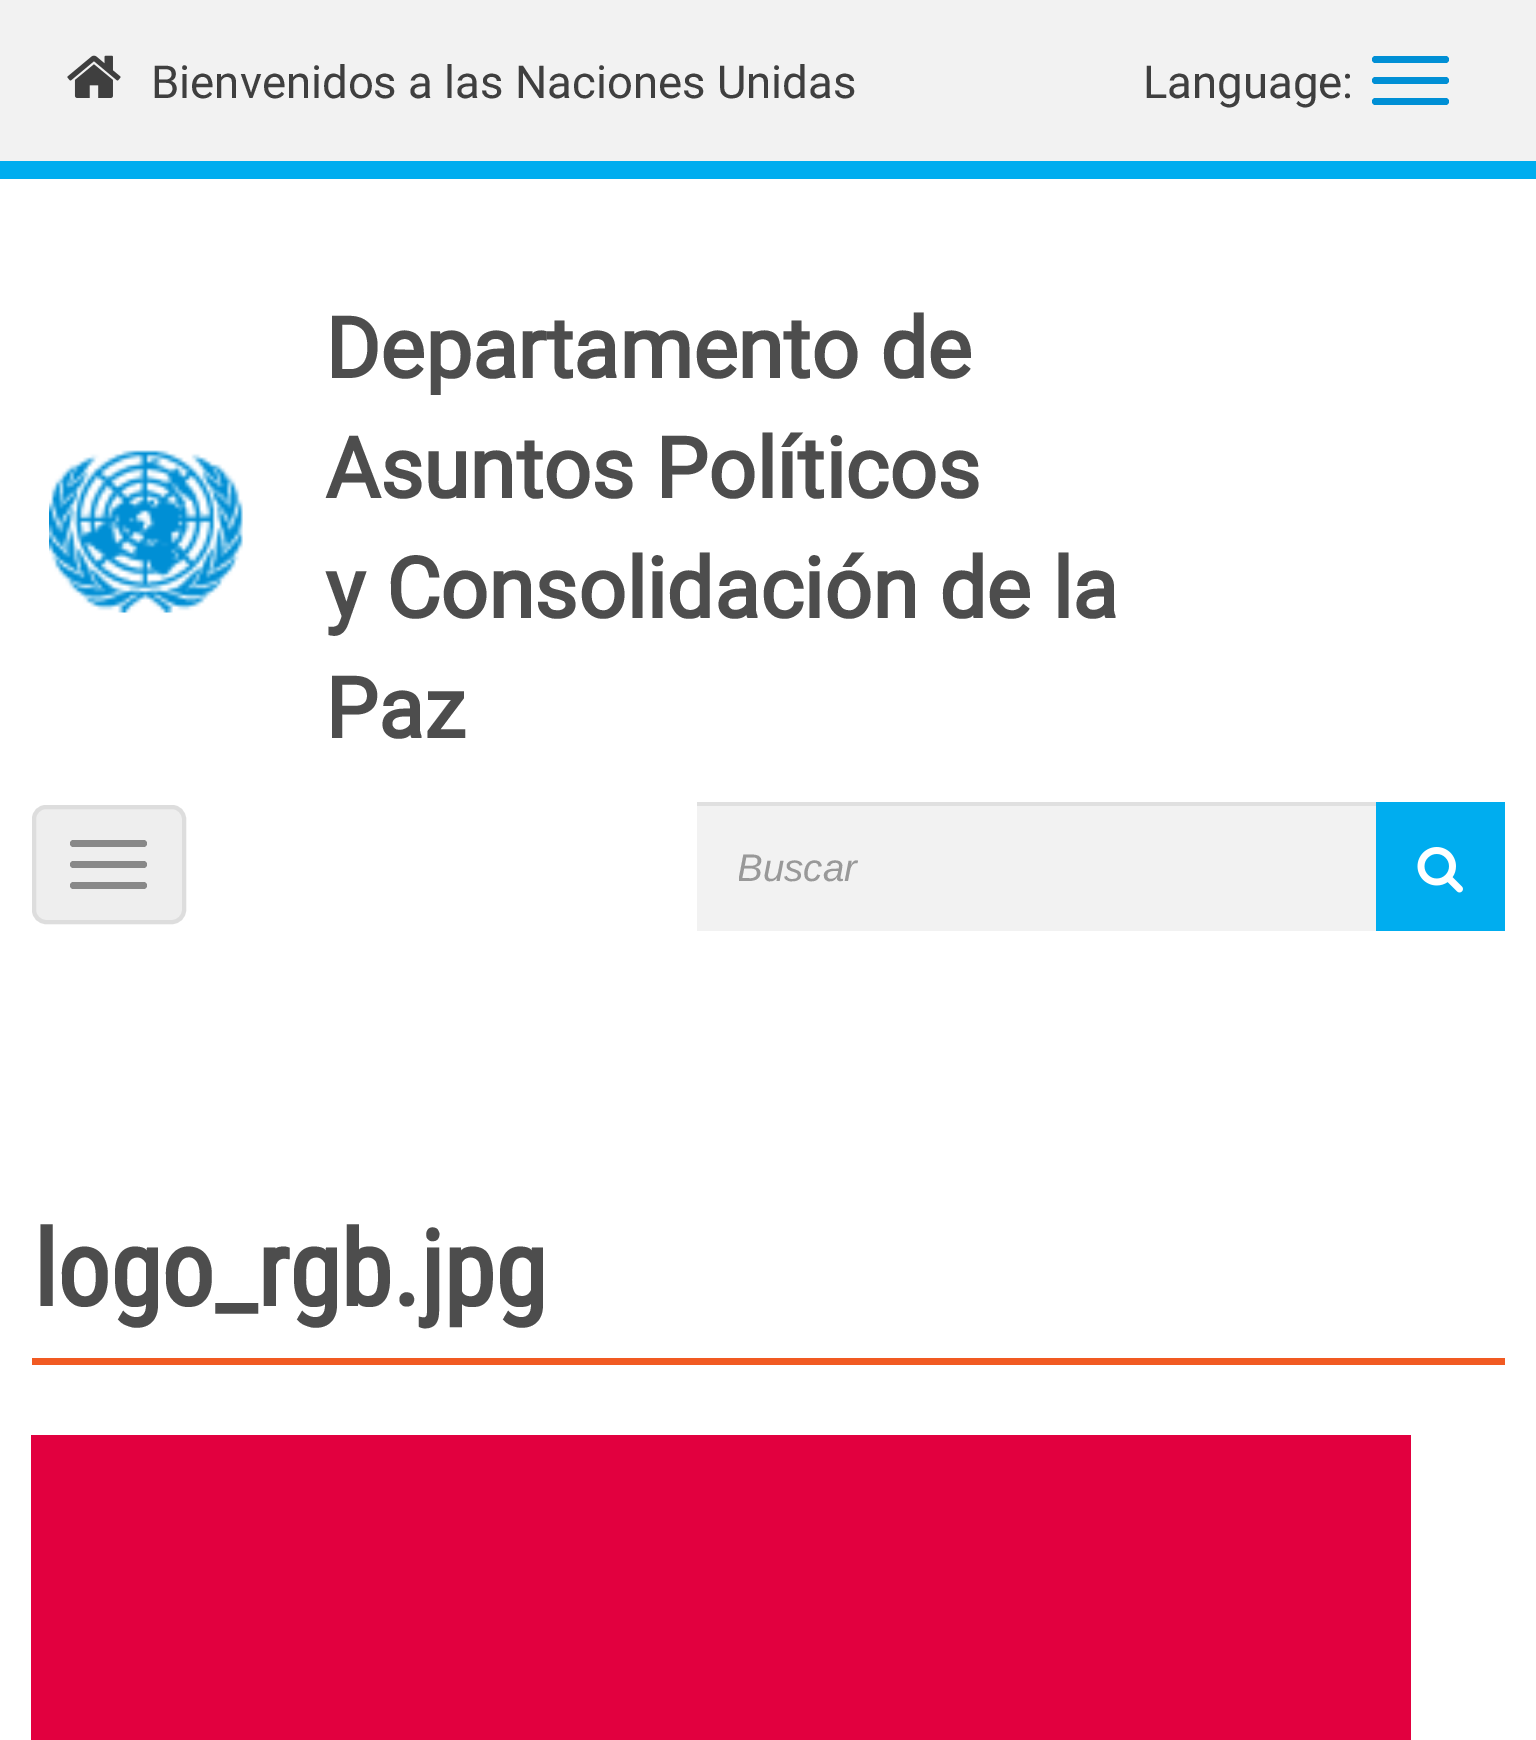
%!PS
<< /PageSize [1536 1740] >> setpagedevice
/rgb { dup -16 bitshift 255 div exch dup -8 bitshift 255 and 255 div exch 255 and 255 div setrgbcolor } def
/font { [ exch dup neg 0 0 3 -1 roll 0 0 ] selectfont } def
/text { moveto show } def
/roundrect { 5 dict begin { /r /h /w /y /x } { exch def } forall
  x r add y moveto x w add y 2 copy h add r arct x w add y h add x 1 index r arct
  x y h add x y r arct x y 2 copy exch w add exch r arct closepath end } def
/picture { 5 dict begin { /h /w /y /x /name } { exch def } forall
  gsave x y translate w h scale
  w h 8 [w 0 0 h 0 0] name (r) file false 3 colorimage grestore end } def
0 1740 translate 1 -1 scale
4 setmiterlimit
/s1 { /Roboto-Regular 45.5 font 16#3F3F3F rgb } def
/s2 { /Roboto-Bold 84 font 16#4D4D4D rgb } def
/s3 { /LiberationSans-Italic 38.5 font 16#999999 rgb } def
/s4 { /RobotoCondensed-Bold 105 font 16#4D4D4D rgb } def
16#FFFFFF rgb
0 0 1536 1740 rectfill
16#F2F2F2 rgb
0 0 1536 161 rectfill
16#00ADEF rgb
0 161 1536 18 rectfill
(pic1.raw) 67 55 54 43 picture
s1
(Bienvenidos a las Naciones Unidas) 151 98 text
(Language:) 1143 98 text
16#008FD5 rgb
1372 56 77 7 3.5 roundrect fill
1372 77 77 7 3.5 roundrect fill
1372 98 77 7 3.5 roundrect fill
(pic2.raw) 49 450 194 163 picture
s2
(Departamento de) 325 378 text
(Asuntos Políticos) 325 498 text
(y Consolidación de la) 325 618 text
(Paz) 325 738 text
16#EEEEEE rgb
34 807 150 115 12 roundrect gsave fill grestore
16#DDDDDD rgb
4 setlinewidth
stroke
16#888888 rgb
70 840 77 7 3.5 roundrect fill
70 861 77 7 3.5 roundrect fill
70 882 77 7 3.5 roundrect fill
16#F2F2F2 rgb
697 806 679 125 rectfill
16#E0E0E0 rgb
697 802 679 4 rectfill
gsave
739 847 724 42 rectclip
s3
(Buscar) 737 881 text
grestore
16#00ADEF rgb
1376 802 129 129 rectfill
(pic3.raw) 1417 847 46 46 picture
16#F15A22 rgb
32 1358 1473 7 rectfill
s4
(logo_rgb.jpg) 33 1306 text
16#E2003F rgb
31 1435 1380 305 rectfill
showpage
